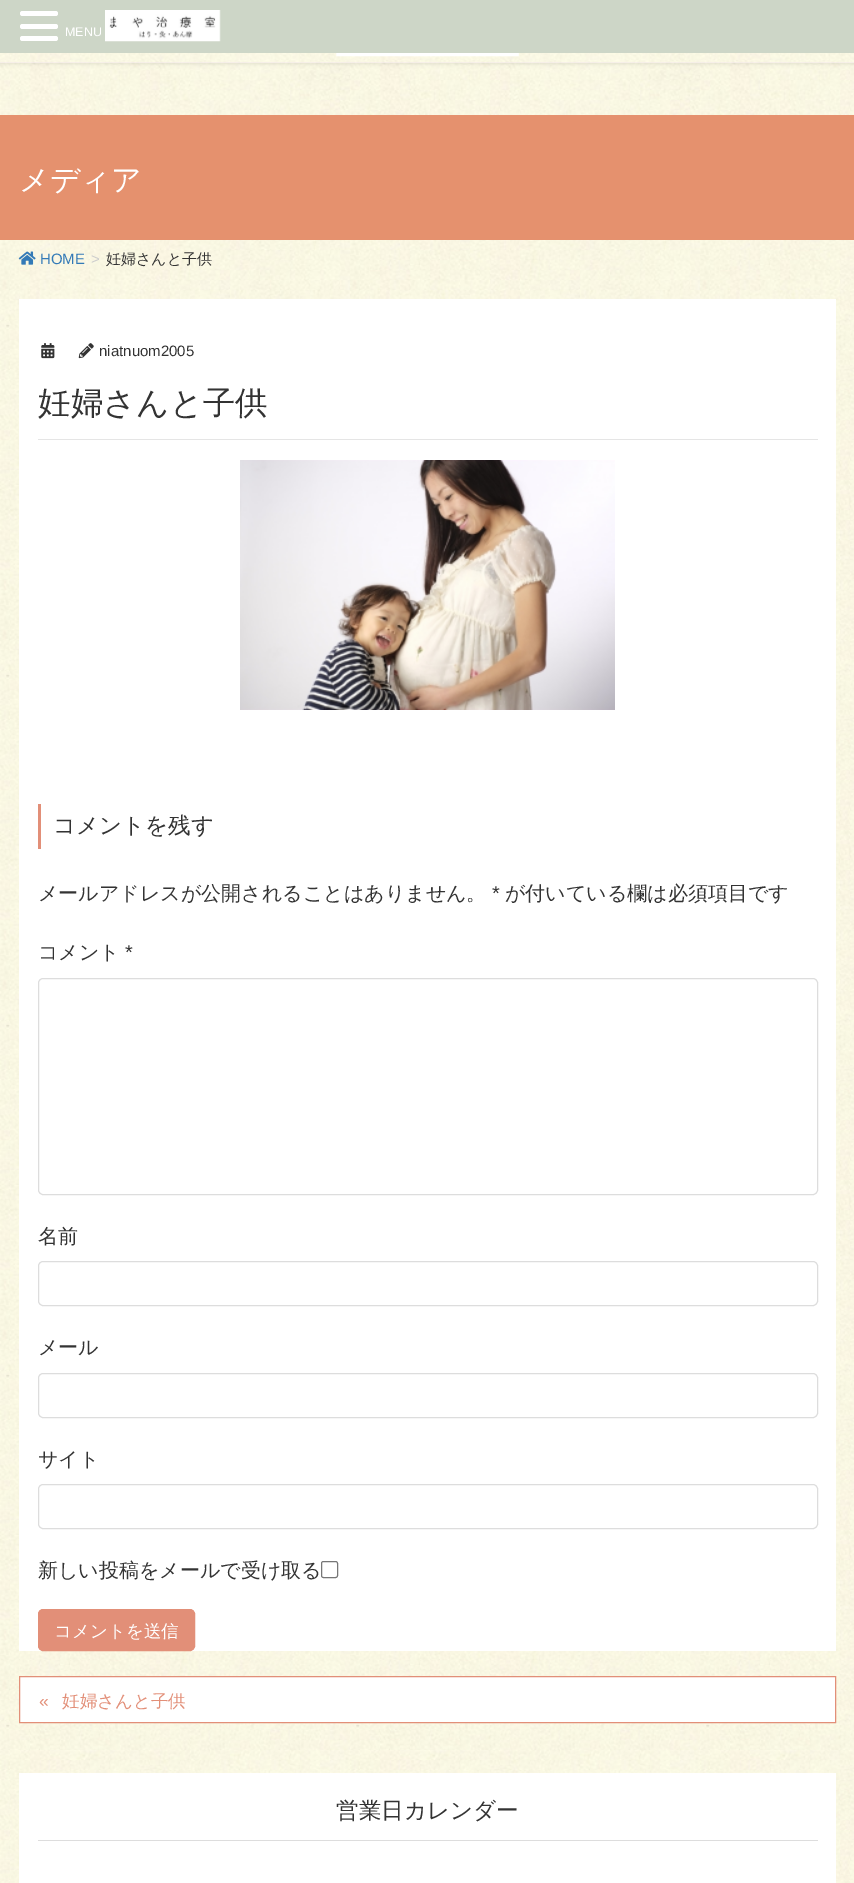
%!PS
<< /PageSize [854 1883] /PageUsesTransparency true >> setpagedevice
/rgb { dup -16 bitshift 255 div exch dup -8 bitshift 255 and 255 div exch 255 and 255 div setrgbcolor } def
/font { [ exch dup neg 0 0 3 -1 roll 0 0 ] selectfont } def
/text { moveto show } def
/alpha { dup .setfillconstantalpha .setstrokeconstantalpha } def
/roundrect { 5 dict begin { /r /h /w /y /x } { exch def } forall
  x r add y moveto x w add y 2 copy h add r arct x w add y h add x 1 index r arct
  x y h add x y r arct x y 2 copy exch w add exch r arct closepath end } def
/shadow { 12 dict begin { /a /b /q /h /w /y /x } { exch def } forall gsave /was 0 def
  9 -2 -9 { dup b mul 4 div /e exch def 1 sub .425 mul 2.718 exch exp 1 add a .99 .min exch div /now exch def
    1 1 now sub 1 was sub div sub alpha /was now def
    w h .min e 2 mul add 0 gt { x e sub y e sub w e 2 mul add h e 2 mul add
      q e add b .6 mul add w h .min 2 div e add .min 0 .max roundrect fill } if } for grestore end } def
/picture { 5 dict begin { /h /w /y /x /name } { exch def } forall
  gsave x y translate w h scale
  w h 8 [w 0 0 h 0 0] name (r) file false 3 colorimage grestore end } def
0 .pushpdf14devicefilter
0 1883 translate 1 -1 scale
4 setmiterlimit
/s1 { /LiberationSans-Regular 12.5 font 16#FFFFFF rgb } def
/s2 { /WenQuanYiZenHei-Medium 30 font 16#FFFFFF rgb } def
/s3 { /LiberationSans-Regular 15 font 16#337AB7 rgb } def
/s4 { /LiberationSans-Regular 15 font 16#CCCCCC rgb } def
/s5 { /WenQuanYiZenHei-Medium 15 font 16#333333 rgb } def
/s6 { /LiberationSans-Regular 15 font 16#333333 rgb } def
/s7 { /WenQuanYiZenHei-Medium 32.5 font 16#333333 rgb } def
/s8 { /WenQuanYiZenHei-Medium 22.5 font 16#333333 rgb } def
/s9 { /WenQuanYiZenHei-Medium 20 font 16#333333 rgb } def
/s10 { /LiberationSans-Regular 20 font 16#333333 rgb } def
/s11 { /WenQuanYiZenHei-Medium 17.5 font 16#FFFFFF rgb } def
/s12 { /LiberationSans-Regular 17.5 font 16#E28F78 rgb } def
/s13 { /WenQuanYiZenHei-Medium 17.5 font 16#E28F78 rgb } def
16#FFFFFF rgb
0 0 854 1883 rectfill
(pic1.raw) 0 63 854 1820 picture
16#000000 rgb
0 1 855 63 0 2 0.1 shadow
16#F2E6EB rgb
0 62 854 1 rectfill
(pic2.raw) 0 53 854 10 picture
(pic3.raw) 336 53 183 4 picture
16#CDD6C7 rgb
0 0 854 53 rectfill
16#FFFFFF rgb
20 11 38 5 2.5 roundrect fill
20 24 38 5 2.5 roundrect fill
20 36 38 5 2.5 roundrect fill
s1
(MENU) 65 36 text
(pic4.raw) 105 10 116 32 picture
16#E5916E rgb
0 115 854 125 rectfill
s2
(メディア) 19 190 text
(pic5.raw) 18 251 18 14 picture
s3
(HOME) 40 264 text
s4
(>) 91 264 text
s5
(妊婦さんと子供) 106 264 text
16#FFFFFF rgb
19 299 817 1352 rectfill
16#E5E5E5 rgb
38 439 780 1 rectfill
(pic6.raw) 41 343 14 16 picture
(pic7.raw) 78 343 16 16 picture
s6
(niatnuom2005) 99 356 text
s7
(妊婦さんと子供) 38 414 text
(pic8.raw) 240 460 375 250 picture
16#E28F78 rgb
38 804 3 45 rectfill
s8
(コメントを残す) 53 833 text
s9
(メールアドレスが公開されることはありません。) 38 900 text
s10
(*) 492 900 text
s9
(が付いている欄は必須項目です) 505 900 text
(コメント) 38 959 text
s10
(*) 125 959 text
16#DDDDDD rgb
38.5 978.5 779 216 4.5 roundrect stroke
s9
(名前) 38 1243 text
16#DDDDDD rgb
38.5 1261.5 779 44 4.5 roundrect stroke
s9
(メール) 38 1354 text
16#DDDDDD rgb
38.5 1373.5 779 44 4.5 roundrect stroke
s9
(サイト) 38 1466 text
16#DDDDDD rgb
38.5 1484.5 779 44 4.5 roundrect stroke
s9
(新しい投稿をメールで受け取る) 38 1577 text
16#767676 rgb
321.5 1561.5 16 16 2 roundrect stroke
16#E28F78 rgb
38.5 1609.5 156 41 4.5 roundrect gsave fill grestore
stroke
s11
(コメントを送信) 54 1637 text
19.5 1676.5 moveto 835.5 1676.5 lineto 835.5 1722.5 lineto 19.5 1722.5 lineto closepath gsave fill grestore
16#E28F78 rgb
stroke
s12
(«) 39 1707 text
s13
(妊婦さんと子供) 62 1707 text
16#FFFFFF rgb
19 1773 817 110 rectfill
16#DDDDDD rgb
38 1840 780 1 rectfill
s8
(営業日カレンダー) 336 1818 text
.poppdf14devicefilter showpage
